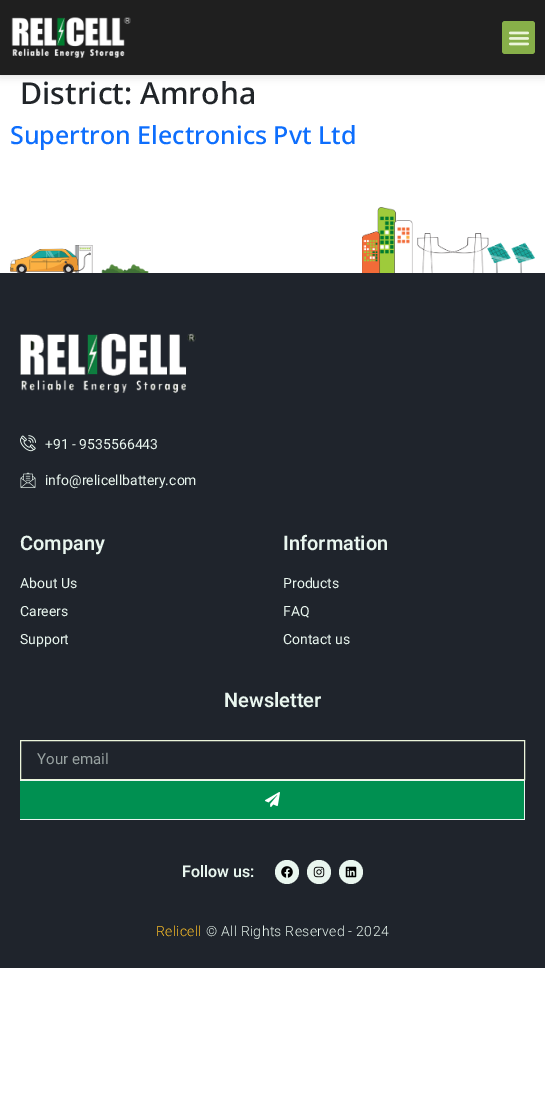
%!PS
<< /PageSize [545 1103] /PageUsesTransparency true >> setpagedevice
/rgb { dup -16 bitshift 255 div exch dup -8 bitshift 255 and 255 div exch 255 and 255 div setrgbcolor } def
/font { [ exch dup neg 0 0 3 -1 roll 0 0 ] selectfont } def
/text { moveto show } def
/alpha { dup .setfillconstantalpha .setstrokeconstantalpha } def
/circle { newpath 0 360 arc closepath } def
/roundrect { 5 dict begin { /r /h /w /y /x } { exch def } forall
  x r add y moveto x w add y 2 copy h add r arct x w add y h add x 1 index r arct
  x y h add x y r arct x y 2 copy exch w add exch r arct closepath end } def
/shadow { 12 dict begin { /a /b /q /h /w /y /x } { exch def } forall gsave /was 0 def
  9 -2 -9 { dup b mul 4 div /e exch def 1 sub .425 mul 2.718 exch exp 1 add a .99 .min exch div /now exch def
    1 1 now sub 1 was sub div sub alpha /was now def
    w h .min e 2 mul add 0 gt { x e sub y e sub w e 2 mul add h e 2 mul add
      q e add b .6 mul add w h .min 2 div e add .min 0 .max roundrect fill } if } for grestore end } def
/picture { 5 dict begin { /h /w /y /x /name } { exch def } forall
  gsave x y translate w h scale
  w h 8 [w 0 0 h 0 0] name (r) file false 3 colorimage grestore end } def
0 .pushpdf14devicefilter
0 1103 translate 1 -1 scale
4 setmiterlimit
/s1 { /NotoSans-Medium 30.25 font 16#212529 rgb } def
/s2 { /NotoSans-Medium 25 font 16#0D6EFD rgb } def
/s3 { /Roboto-Regular 14 font 16#E9F6EF rgb } def
/s4 { /Roboto-SemiBold 20 font 16#E9F6EF rgb } def
/s5 { /Roboto-Regular 15 font 16#98A2A1 rgb } def
/s6 { /Roboto-SemiBold 16 font 16#E9F6EF rgb } def
16#FFFFFF rgb
0 0 545 1103 rectfill
16#AAAAAA rgb
0 0 545 75 0 5 0.5 shadow
16#1F1F1F rgb
0 0 545 75 rectfill
(pic1.raw) 11 17 120 42 picture
16#87AF49 rgb
502 21 33 33 3 roundrect fill
(pic2.raw) 508 31 21 15 picture
s1
(District: Amroha) 20 104 text
s2
(Supertron Electronics Pvt Ltd) 10 144 text
(pic3.raw) 10 207 525 66 picture
16#1F242C rgb
0 273 545 695 rectfill
(pic4.raw) 20 333 176 60 picture
(pic5.raw) 20 435 16 17 picture
s3
(+91 - 9535566443) 45 449 text
(pic6.raw) 20 472 16 16 picture
(info@relicellbattery.com) 45 485 text
s4
(Company) 20 550 text
s3
(About Us) 20 588 text
(Careers) 20 616 text
(Support) 20 644 text
s4
(Information) 283 550 text
s3
(Products) 283 588 text
(FAQ) 283 616 text
(Contact us) 283 644 text
s4
(Newsletter) 224 707 text
16#ECF5DB rgb
20.5 740.5 504 39 rectstroke
s5
(Your email) 37 764 text
16#009051 rgb
20 781 504 38 rectfill
16#E9F6EF rgb
20 780 505 1 rectfill
524 780 1 40 rectfill
20 819 505 1 rectfill
(pic7.raw) 265 792 15 15 picture
s6
(Follow us:) 182 877 text
287 872 12 circle fill
(pic8.raw) 281 866 12 12 picture
319 872 12 circle fill
(pic9.raw) 313 866 12 12 picture
351 872 12 circle fill
(pic10.raw) 345 866 12 12 picture
/Roboto-Light 14 font
16#F8BC26 rgb
156 936 moveto 0.3 0 (Relicell) ashow
16#E9F6EF rgb
206 936 moveto 0.3 0 (© All Rights Reserved - 2024) ashow
.poppdf14devicefilter showpage
